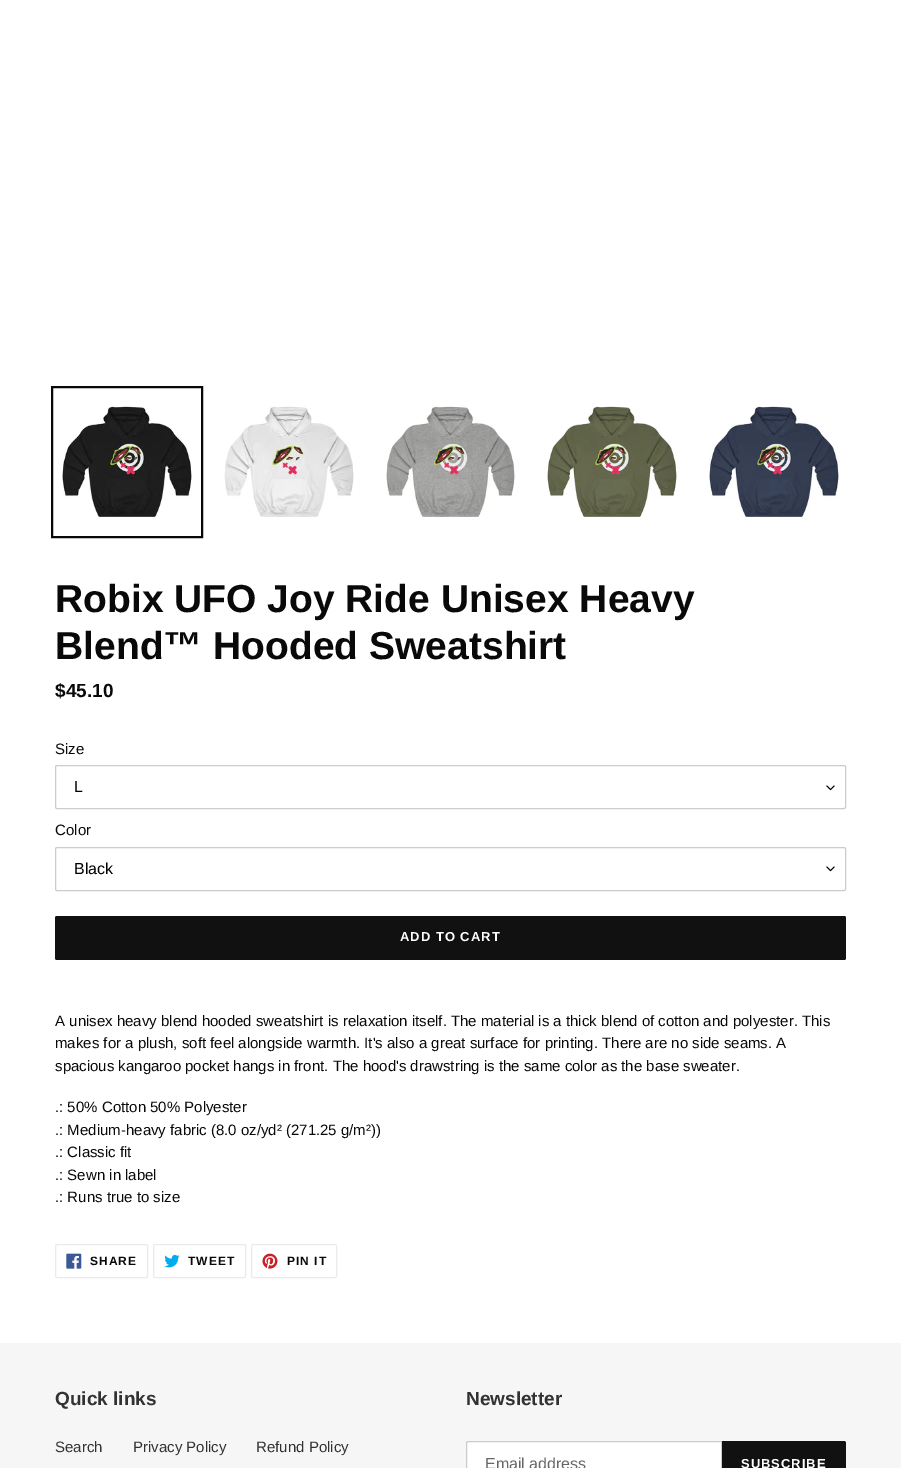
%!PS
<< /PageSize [901 1468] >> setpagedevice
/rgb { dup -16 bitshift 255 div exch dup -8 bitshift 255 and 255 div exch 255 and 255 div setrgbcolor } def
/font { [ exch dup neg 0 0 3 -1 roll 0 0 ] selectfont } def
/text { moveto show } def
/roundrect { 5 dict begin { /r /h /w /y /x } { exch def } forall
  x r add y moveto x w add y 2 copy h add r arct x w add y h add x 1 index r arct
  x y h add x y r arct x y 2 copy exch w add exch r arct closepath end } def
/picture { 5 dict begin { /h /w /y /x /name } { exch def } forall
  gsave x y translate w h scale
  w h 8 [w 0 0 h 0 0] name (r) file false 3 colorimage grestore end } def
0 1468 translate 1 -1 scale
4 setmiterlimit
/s1 { /LiberationSans-Bold 39 font 16#0A0909 rgb } def
/s2 { /LiberationSans-Bold 19 font 16#0A0909 rgb } def
/s3 { /LiberationSans-Regular 15 font 16#0A0909 rgb } def
/s4 { /LiberationSans-Regular 16 font 16#000000 rgb } def
/s5 { /LiberationSans-Bold 19 font 16#333232 rgb } def
/s6 { /LiberationSans-Regular 15 font 16#333232 rgb } def
/s7 { /LiberationSans-Regular 16 font 16#666666 rgb } def
16#FFFFFF rgb
0 0 901 1468 rectfill
16#0A0909 rgb
2 setlinewidth
52 387 150 150 rectstroke
(pic1.raw) 62 406 130 111 picture
(pic2.raw) 224 406 130 111 picture
(pic3.raw) 386 406 129 111 picture
(pic4.raw) 547 406 131 111 picture
(pic5.raw) 709 406 130 111 picture
s1
(Robix UFO Joy Ride Unisex Heavy) 55 612 text
(Blend™ Hooded Sweatshirt) 55 659 text
s2
($45.10) 55 697 text
s3
(Size) 55 754 text
(pic6.raw) 826 785 9 6 picture
16#CCCCCC rgb
1 setlinewidth
55.5 765.5 790 43 1.5 roundrect stroke
s4
(L) 74 792 text
s3
(Color) 55 835 text
(pic6.raw) 826 866 9 6 picture
16#CCCCCC rgb
55.5 847.5 790 43 1.5 roundrect stroke
s4
(Black) 74 874 text
16#121111 rgb
55 916 791 44 2 roundrect fill
/LiberationSans-Bold 13 font
16#FFFFFF rgb
400 941 moveto 1 0 (ADD TO CART) ashow
s3
(A unisex heavy blend hooded sweatshirt is relaxation itself. The material is a thick blend of cotton and polyester. This) 55 1026 text
(makes for a plush, soft feel alongside warmth. It's also a great surface for printing. There are no side seams. A) 55 1048 text
(spacious kangaroo pocket hangs in front. The hood's drawstring is the same color as the base sweater.) 55 1071 text
(.: 50% Cotton 50% Polyester) 55 1112 text
(.: Medium-heavy fabric \(8.0 oz/yd² \(271.25 g/m²\)\)) 55 1135 text
(.: Classic fit) 55 1157 text
(.: Sewn in label) 55 1180 text
(.: Runs true to size) 55 1202 text
16#EBEBEB rgb
55.5 1244.5 92 33 1.5 roundrect stroke
(pic7.raw) 66 1253 16 16 picture
/LiberationSans-Bold 12 font
16#0A0909 rgb
90 1265 moveto 1 0 (SHARE) ashow
16#EBEBEB rgb
153.5 1244.5 92 33 1.5 roundrect stroke
(pic8.raw) 164 1254 16 14 picture
16#0A0909 rgb
188 1265 moveto 1 0 (TWEET) ashow
16#EBEBEB rgb
251.5 1244.5 85 33 1.5 roundrect stroke
(pic9.raw) 262 1253 16 16 picture
16#0A0909 rgb
287 1265 moveto 1 0 (PIN IT) ashow
16#F6F6F6 rgb
0 1343 901 125 rectfill
s5
(Quick links) 55 1405 text
s6
(Search) 55 1452 text
(Privacy Policy) 133 1452 text
(Refund Policy) 256 1452 text
s5
(Newsletter) 466 1405 text
16#FFFFFF rgb
468 1441.5 moveto 721.5 1441.5 lineto 721.5 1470.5 lineto 468 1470.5 lineto 467 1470.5 466.5 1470 466.5 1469 curveto 466.5 1443 lineto 466.5 1442 467 1441.5 468 1441.5 curveto closepath gsave fill grestore
16#CCCCCC rgb
stroke
s7
(Email address) 485 1469 text
16#121111 rgb
722 1441 moveto 844 1441 lineto 845 1441 846 1442 846 1443 curveto 846 1468 lineto 846 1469 845 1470 844 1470 curveto 722 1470 lineto closepath fill
/LiberationSans-Bold 13 font
16#FFFFFF rgb
741 1468 moveto 1 0 (SUBSCRIBE) ashow
showpage
